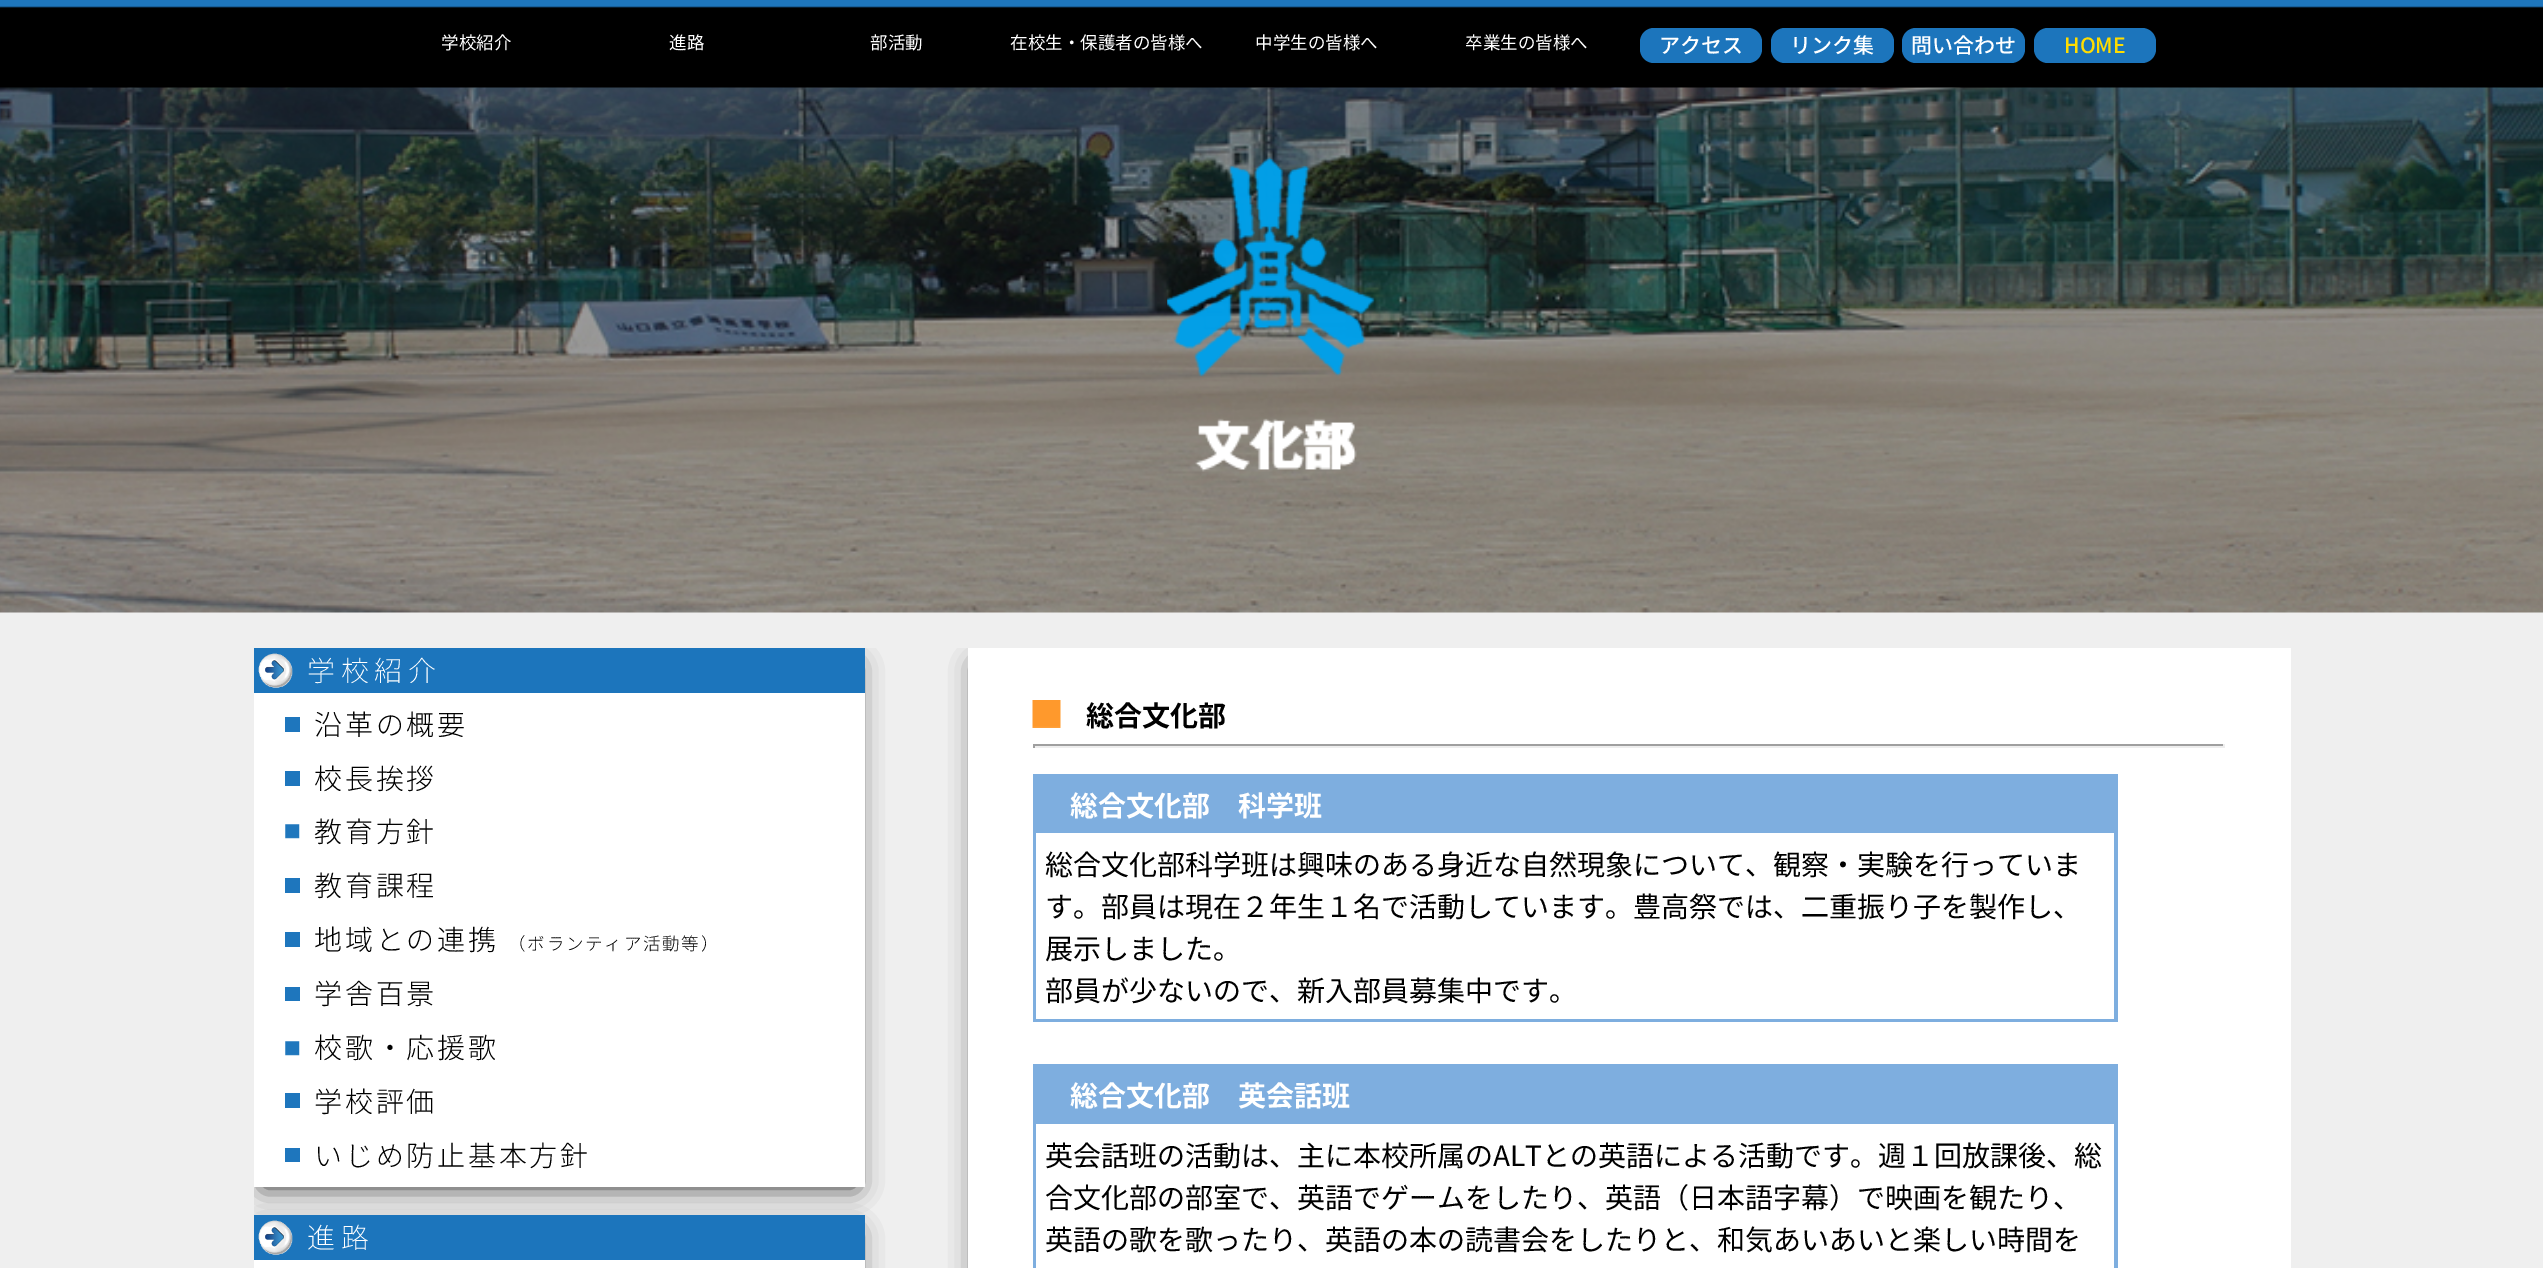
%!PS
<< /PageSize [2543 1268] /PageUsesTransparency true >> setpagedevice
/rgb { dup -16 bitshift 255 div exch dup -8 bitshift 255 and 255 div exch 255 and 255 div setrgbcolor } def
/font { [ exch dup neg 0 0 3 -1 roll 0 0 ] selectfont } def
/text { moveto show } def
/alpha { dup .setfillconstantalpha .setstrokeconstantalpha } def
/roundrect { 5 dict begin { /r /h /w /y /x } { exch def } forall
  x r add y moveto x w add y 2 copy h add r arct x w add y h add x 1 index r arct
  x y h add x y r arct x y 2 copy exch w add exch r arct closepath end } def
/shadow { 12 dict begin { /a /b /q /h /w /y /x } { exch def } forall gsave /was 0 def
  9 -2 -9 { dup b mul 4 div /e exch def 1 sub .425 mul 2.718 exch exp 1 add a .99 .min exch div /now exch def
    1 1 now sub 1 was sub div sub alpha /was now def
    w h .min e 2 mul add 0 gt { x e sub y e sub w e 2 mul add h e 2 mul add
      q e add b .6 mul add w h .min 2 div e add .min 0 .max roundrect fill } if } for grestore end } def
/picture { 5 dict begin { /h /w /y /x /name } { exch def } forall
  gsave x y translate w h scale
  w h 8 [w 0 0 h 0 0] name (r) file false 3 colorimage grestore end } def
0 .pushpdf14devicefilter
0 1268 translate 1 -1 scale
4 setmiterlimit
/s1 { /NotoSansJP-Regular 17.5 font 16#FFFFFF rgb } def
/s2 { /NotoSansJP-Medium 21 font 16#FFFFFF rgb } def
/s3 { /NotoSansJP-Medium 21 font 16#FFDD00 rgb } def
/s4 { /NotoSansJP-Bold 28 font 16#000000 rgb } def
/s5 { /NotoSansJP-Bold 28 font 16#FFFFFF rgb } def
/s6 { /NotoSansJP-Regular 28 font 16#000000 rgb } def
16#EFEFEF rgb
0 0 2543 1268 rectfill
(pic1.raw) 0 87 2543 526 picture
(pic2.raw) 0 0 2543 88 picture
s1
(学校紹介) 441 49 text
(進路) 669 49 text
(部活動) 870 49 text
(在校生・保護者の皆様へ) 1010 49 text
(中学生の皆様へ) 1255 49 text
(卒業生の皆様へ) 1465 49 text
16#1C75BC rgb
1640 28 122 35 14 roundrect fill
s2
(アクセス) 1659 53 text
16#1C75BC rgb
1771 28 123 35 14 roundrect fill
s2
(リンク集) 1790 53 text
16#1C75BC rgb
1902 28 123 35 14 roundrect fill
s2
(問い合わせ) 1911 53 text
16#1C75BC rgb
2034 28 122 35 14 roundrect fill
s3
(HOME) 2064 53 text
(pic3.raw) 1167 157 208 315 picture
gsave
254 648 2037 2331 rectclip
16#000000 rgb
263 665 593 522 0 13 0.8 shadow
grestore
16#FFFFFF rgb
254 693 611 494 rectfill
16#1C75BC rgb
254 648 611 45 rectfill
(pic4.raw) 258 653 35 35 picture
/NotoSansJP-ExtraLight 28 font
16#FFFFFF rgb
307 681 moveto 5.5 0 (学校紹介) ashow
16#1E76BD rgb
285 717 15 15 rectfill
/NotoSansJP-Light 28 font
16#000000 rgb
314 735 moveto 2.75 0 (沿革の概要) ashow
16#1E76BD rgb
285 771 15 15 rectfill
16#000000 rgb
314 789 moveto 2.75 0 (校長挨拶) ashow
(pic5.raw) 285 824 15 15 picture
314 842 moveto 2.75 0 (教育方針) ashow
16#1E76BD rgb
285 878 15 15 rectfill
16#000000 rgb
314 896 moveto 2.75 0 (教育課程) ashow
16#1E76BD rgb
285 932 15 15 rectfill
16#000000 rgb
314 950 moveto 2.75 0 (地域との連携) ashow
/NotoSansJP-Light 17.5 font
508 950 moveto 1.75 0 (（ボランティア活動等）) ashow
16#1E76BD rgb
285 987 15 14 rectfill
/NotoSansJP-Light 28 font
16#000000 rgb
314 1004 moveto 2.75 0 (学舎百景) ashow
(pic5.raw) 285 1041 15 15 picture
314 1058 moveto 2.75 0 (校歌・応援歌) ashow
16#1E76BD rgb
285 1093 15 15 rectfill
16#000000 rgb
314 1112 moveto 2.75 0 (学校評価) ashow
16#1E76BD rgb
285 1148 15 14 rectfill
16#000000 rgb
314 1166 moveto 2.75 0 (いじめ防止基本方針) ashow
gsave
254 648 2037 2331 rectclip
263 1232 593 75 0 13 0.8 shadow
grestore
16#FFFFFF rgb
254 1260 611 8 rectfill
16#1C75BC rgb
254 1215 611 45 rectfill
(pic4.raw) 258 1220 35 35 picture
/NotoSansJP-ExtraLight 28 font
16#FFFFFF rgb
307 1248 moveto 5.5 0 (進路) ashow
gsave
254 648 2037 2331 rectclip
16#000000 rgb
977 665 1305 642 0 13 0.8 shadow
grestore
968 648 1323 620 rectfill
(pic6.raw) 1032 700 29 28 picture
s4
(総合文化部) 1086 726 text
16#9F9F9F rgb
1033 744 1191 2 rectfill
16#EEEEEE rgb
2223 744 2 4 rectfill
1033 746 1191 2 rectfill
16#9F9F9F rgb
1033 744 2 4 rectfill
16#7EAEDF rgb
1033 774 1085 248 rectfill
s5
(総合文化部　科学班) 1070 816 text
1036 833 1078 186 rectfill
s6
(総合文化部科学班は興味のある身近な自然現象について、観察・実験を行っていま) 1045 875 text
(す。部員は現在２年生１名で活動しています。豊高祭では、二重振り子を製作し、) 1045 917 text
(展示しました。) 1045 959 text
(部員が少ないので、新入部員募集中です。) 1045 1001 text
16#7EAEDF rgb
1033 1064 1085 204 rectfill
s5
(総合文化部　英会話班) 1070 1106 text
1036 1124 1078 144 rectfill
s6
(英会話班の活動は、主に本校所属のALTとの英語による活動です。週１回放課後、総) 1045 1166 text
(合文化部の部室で、英語でゲームをしたり、英語（日本語字幕）で映画を観たり、) 1045 1208 text
(英語の歌を歌ったり、英語の本の読書会をしたりと、和気あいあいと楽しい時間を) 1045 1250 text
.poppdf14devicefilter showpage
